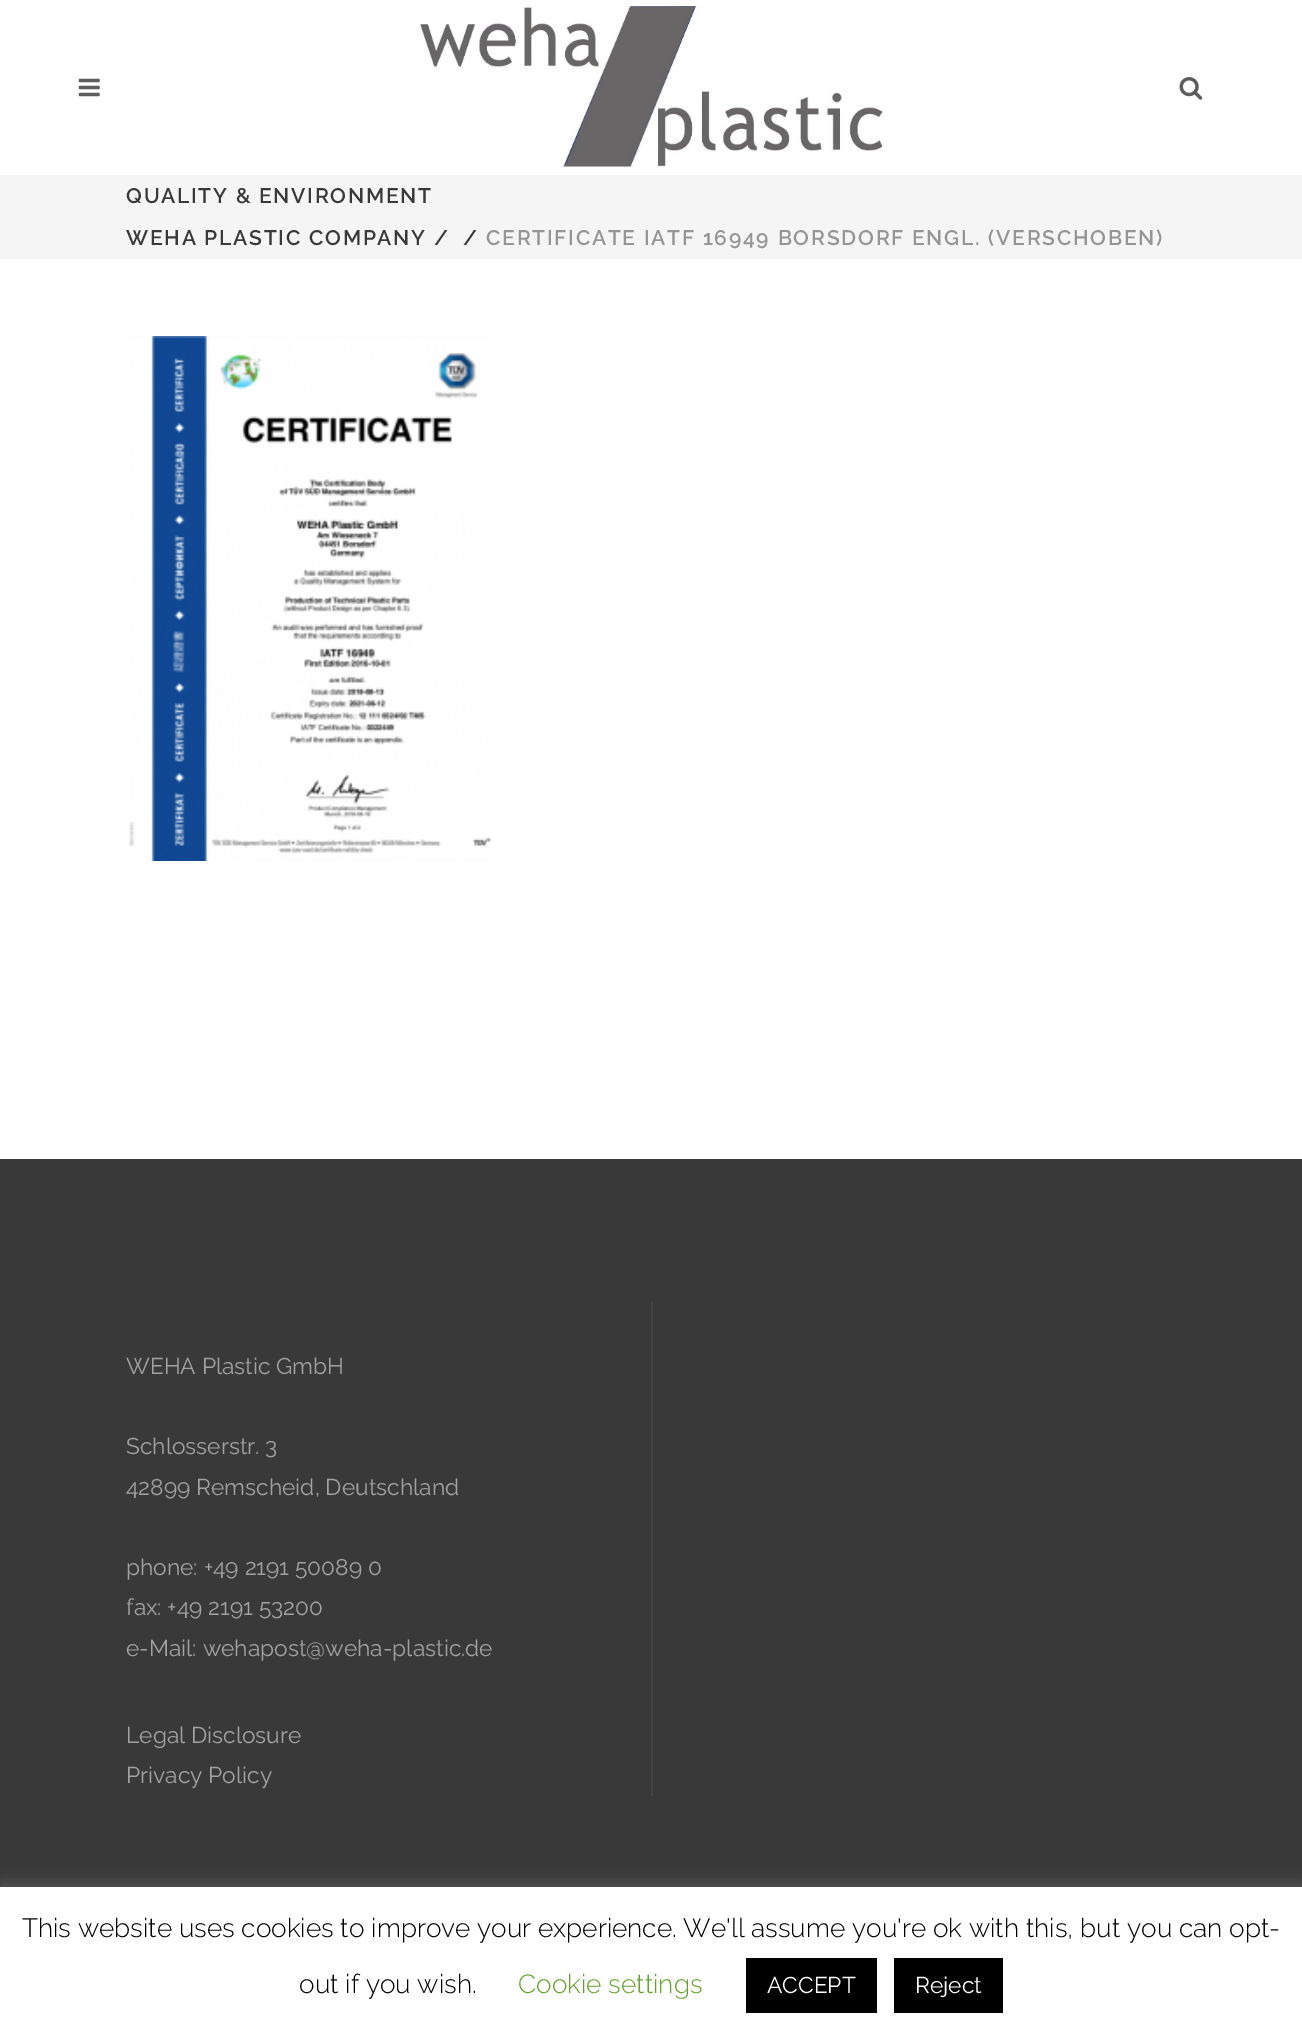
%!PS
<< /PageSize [1302 2042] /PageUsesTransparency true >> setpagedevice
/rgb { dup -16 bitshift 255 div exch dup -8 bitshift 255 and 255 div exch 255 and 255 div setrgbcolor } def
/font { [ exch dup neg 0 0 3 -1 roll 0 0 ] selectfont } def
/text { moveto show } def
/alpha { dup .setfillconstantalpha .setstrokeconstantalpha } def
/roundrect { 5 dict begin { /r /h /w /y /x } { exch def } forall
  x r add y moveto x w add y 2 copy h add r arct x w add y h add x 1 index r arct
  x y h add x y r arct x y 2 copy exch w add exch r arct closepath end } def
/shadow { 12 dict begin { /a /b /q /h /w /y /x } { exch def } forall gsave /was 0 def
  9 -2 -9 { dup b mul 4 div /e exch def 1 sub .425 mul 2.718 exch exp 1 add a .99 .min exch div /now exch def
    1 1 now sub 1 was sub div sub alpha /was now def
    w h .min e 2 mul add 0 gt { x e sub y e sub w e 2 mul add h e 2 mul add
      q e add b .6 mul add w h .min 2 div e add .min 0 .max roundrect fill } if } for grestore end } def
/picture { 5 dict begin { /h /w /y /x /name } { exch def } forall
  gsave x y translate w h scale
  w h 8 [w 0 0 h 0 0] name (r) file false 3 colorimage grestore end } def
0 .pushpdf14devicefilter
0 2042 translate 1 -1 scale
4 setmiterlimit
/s1 { /Raleway-Regular 22.75 font 16#A2A2A2 rgb } def
/s2 { /Raleway-Light 26.25 font 16#000000 rgb } def
/s3 { /Raleway-Light 26.25 font 16#62A329 rgb } def
/s4 { /Raleway-Regular 22.75 font 16#FFFFFF rgb } def
16#FFFFFF rgb
0 0 1302 2042 rectfill
(pic1.raw) 78 78 22 19 picture
(pic2.raw) 419 6 465 162 picture
(pic3.raw) 1179 77 24 23 picture
16#F5F5F5 rgb
0 175 1302 84 rectfill
/Raleway-SemiBold 21 font
16#393939 rgb
126 203 moveto 1.75 0 (QUALITY & ENVIRONMENT) ashow
126 245 moveto 1.75 0 (WEHA PLASTIC COMPANY /) ashow
463 245 moveto 1.75 0 (/) ashow
16#959595 rgb
486 245 moveto 1.75 0 (CERTIFICATE IATF 16949 BORSDORF ENGL. \(VERSCHOBEN\)) ashow
(pic4.raw) 129 336 363 525 picture
16#393939 rgb
0 1159 1302 728 rectfill
s1
(WEHA Plastic GmbH) 126 1374 text
(Schlosserstr. 3) 126 1454 text
(42899 Remscheid, Deutschland) 126 1495 text
(phone: +49 2191 50089 0) 126 1575 text
(fax: +49 2191 53200) 126 1615 text
(e-Mail: wehapost@weha-plastic.de) 126 1656 text
(Legal Disclosure) 126 1743 text
(Privacy Policy) 126 1783 text
16#444444 rgb
651 1302 2 494 rectfill
16#ACABAB rgb
0 1885 1302 156 0 9 0.3 shadow
16#FFFFFF rgb
0 1887 1302 155 rectfill
s2
(This website uses cookies to improve your experience. We'll assume you're ok with this, but you can opt-) 22 1937 text
(out if you wish.) 299 1993 text
s3
(Cookie settings) 518 1993 text
16#000000 rgb
746 1958 131 55 rectfill
s4
(ACCEPT) 767 1993 text
16#000000 rgb
894 1958 109 55 rectfill
s4
(Reject) 915 1993 text
.poppdf14devicefilter showpage
